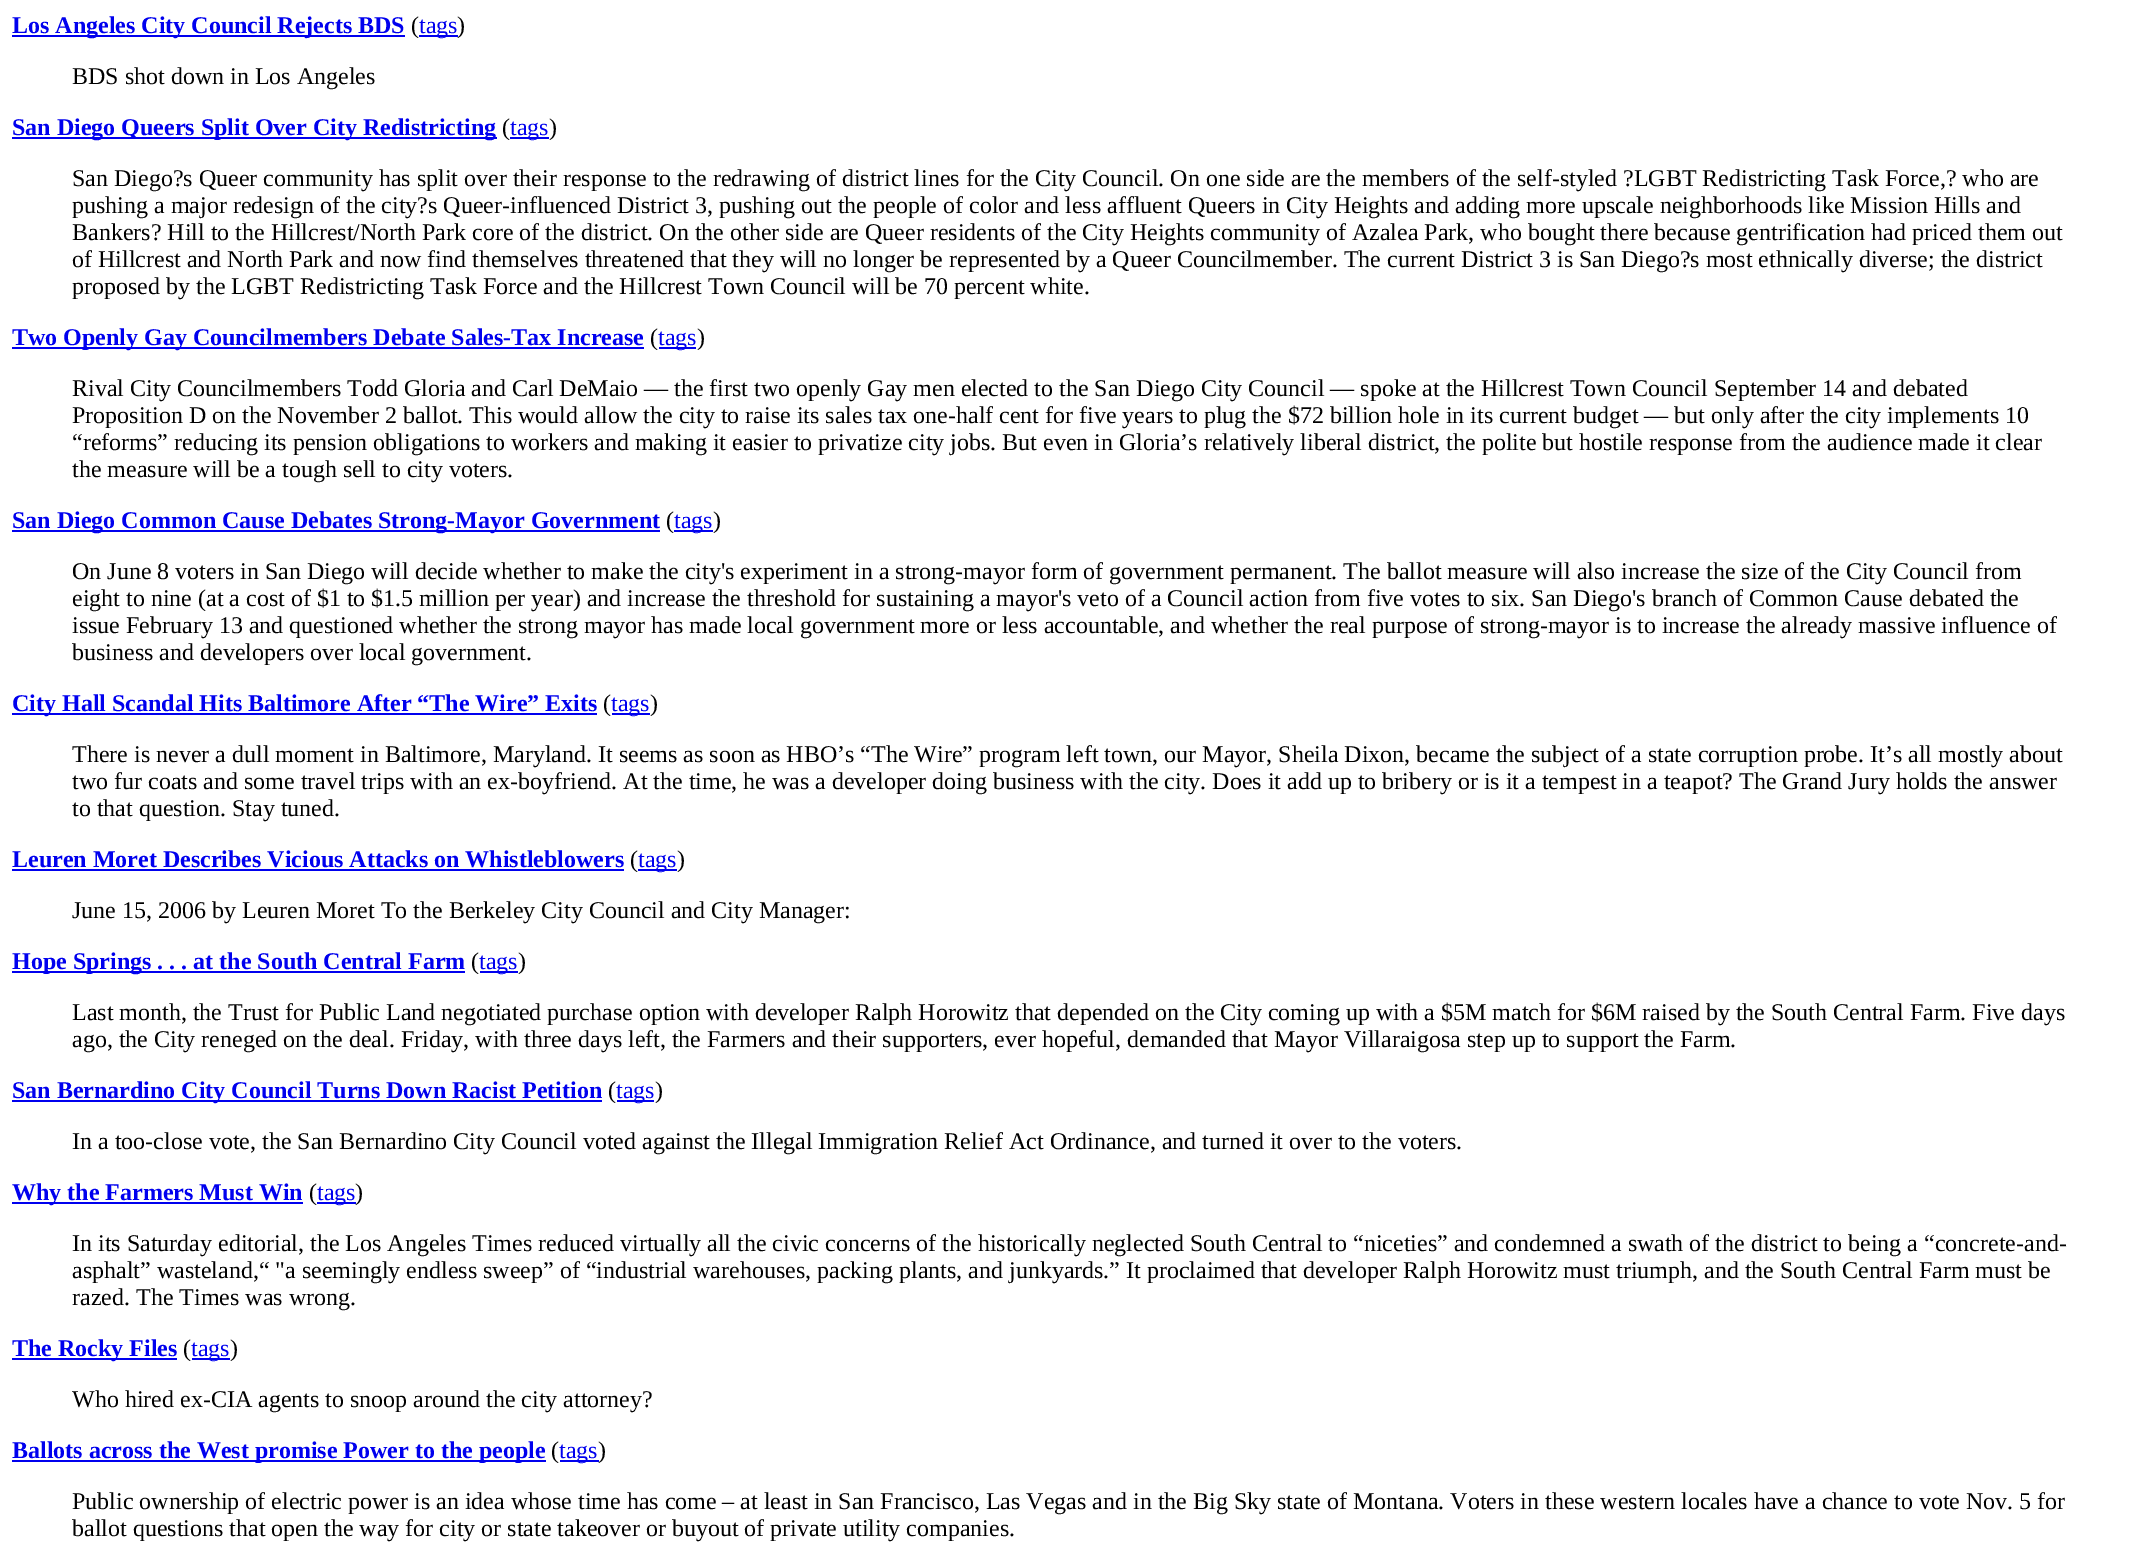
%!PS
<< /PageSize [2139 1550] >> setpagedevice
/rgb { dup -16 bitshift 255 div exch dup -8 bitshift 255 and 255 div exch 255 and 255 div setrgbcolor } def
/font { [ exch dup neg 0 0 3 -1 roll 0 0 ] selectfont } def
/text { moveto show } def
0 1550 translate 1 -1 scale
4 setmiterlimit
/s1 { /LiberationSerif-Bold 24 font 16#0000EE rgb } def
/s2 { /LiberationSerif-Regular 24 font 16#000000 rgb } def
/s3 { /LiberationSerif-Regular 24 font 16#0000EE rgb } def
16#FFFFFF rgb
0 0 2139 1550 rectfill
16#0000EE rgb
12 35 393 2 rectfill
s1
(Los Angeles City Council Rejects BDS) 12 33 text
s2
(\() 411 33 text
16#0000EE rgb
419 35 39 2 rectfill
(tags) 419 33 text
s2
(\)) 457 33 text
(BDS shot down in Los Angeles) 72 84 text
16#0000EE rgb
12 137 485 2 rectfill
s1
(San Diego Queers Split Over City Redistricting) 12 135 text
s2
(\() 502 135 text
16#0000EE rgb
510 137 39 2 rectfill
(tags) 510 135 text
s2
(\)) 549 135 text
(San Diego?s Queer community has split over their response to the redrawing of district lines for the City Council. On one side are the members of the self-styled ?LGBT Redistricting Task Force,? who are) 72 186 text
(pushing a major redesign of the city?s Queer-influenced District 3, pushing out the people of color and less affluent Queers in City Heights and adding more upscale neighborhoods like Mission Hills and) 72 213 text
(Bankers? Hill to the Hillcrest/North Park core of the district. On the other side are Queer residents of the City Heights community of Azalea Park, who bought there because gentrification had priced them out) 72 240 text
(of Hillcrest and North Park and now find themselves threatened that they will no longer be represented by a Queer Councilmember. The current District 3 is San Diego?s most ethnically diverse; the district) 72 267 text
(proposed by the LGBT Redistricting Task Force and the Hillcrest Town Council will be 70 percent white.) 72 294 text
16#0000EE rgb
12 347 632 2 rectfill
s1
(Two Openly Gay Councilmembers Debate Sales-Tax Increase) 12 345 text
s2
(\() 650 345 text
16#0000EE rgb
659 347 37 2 rectfill
(tags) 658 345 text
s2
(\)) 697 345 text
(Rival City Councilmembers Todd Gloria and Carl DeMaio — the first two openly Gay men elected to the San Diego City Council — spoke at the Hillcrest Town Council September 14 and debated) 72 396 text
(Proposition D on the November 2 ballot. This would allow the city to raise its sales tax one-half cent for five years to plug the $72 billion hole in its current budget — but only after the city implements 10) 72 423 text
(“reforms” reducing its pension obligations to workers and making it easier to privatize city jobs. But even in Gloria’s relatively liberal district, the polite but hostile response from the audience made it clear) 72 450 text
(the measure will be a tough sell to city voters.) 72 477 text
16#0000EE rgb
12 530 648 2 rectfill
s1
(San Diego Common Cause Debates Strong-Mayor Government) 12 528 text
s2
(\() 666 528 text
16#0000EE rgb
674 530 39 2 rectfill
(tags) 674 528 text
s2
(\)) 713 528 text
(On June 8 voters in San Diego will decide whether to make the city's experiment in a strong-mayor form of government permanent. The ballot measure will also increase the size of the City Council from) 72 579 text
(eight to nine \(at a cost of $1 to $1.5 million per year\) and increase the threshold for sustaining a mayor's veto of a Council action from five votes to six. San Diego's branch of Common Cause debated the) 72 606 text
(issue February 13 and questioned whether the strong mayor has made local government more or less accountable, and whether the real purpose of strong-mayor is to increase the already massive influence of) 72 633 text
(business and developers over local government.) 72 660 text
16#0000EE rgb
12 713 585 2 rectfill
s1
(City Hall Scandal Hits Baltimore After “The Wire” Exits) 12 711 text
s2
(\() 603 711 text
16#0000EE rgb
612 713 38 2 rectfill
(tags) 611 711 text
s2
(\)) 650 711 text
(There is never a dull moment in Baltimore, Maryland. It seems as soon as HBO’s “The Wire” program left town, our Mayor, Sheila Dixon, became the subject of a state corruption probe. It’s all mostly about) 72 762 text
(two fur coats and some travel trips with an ex-boyfriend. At the time, he was a developer doing business with the city. Does it add up to bribery or is it a tempest in a teapot? The Grand Jury holds the answer) 72 789 text
(to that question. Stay tuned.) 72 816 text
s1
(Leuren Moret Describes Vicious Attacks on Whistleblowers) 12 867 text
12 869 612 2 rectfill
s2
(\() 630 867 text
16#0000EE rgb
638 869 39 2 rectfill
(tags) 638 867 text
s2
(\)) 677 867 text
(June 15, 2006 by Leuren Moret To the Berkeley City Council and City Manager:) 72 918 text
16#0000EE rgb
12 971 453 2 rectfill
s1
(Hope Springs . . . at the South Central Farm) 12 969 text
s2
(\() 471 969 text
16#0000EE rgb
480 971 38 2 rectfill
(tags) 479 969 text
s2
(\)) 518 969 text
(Last month, the Trust for Public Land negotiated purchase option with developer Ralph Horowitz that depended on the City coming up with a $5M match for $6M raised by the South Central Farm. Five days) 72 1020 text
(ago, the City reneged on the deal. Friday, with three days left, the Farmers and their supporters, ever hopeful, demanded that Mayor Villaraigosa step up to support the Farm.) 72 1047 text
16#0000EE rgb
12 1100 590 2 rectfill
s1
(San Bernardino City Council Turns Down Racist Petition) 12 1098 text
s2
(\() 608 1098 text
16#0000EE rgb
617 1100 37 2 rectfill
(tags) 616 1098 text
s2
(\)) 655 1098 text
(In a too-close vote, the San Bernardino City Council voted against the Illegal Immigration Relief Act Ordinance, and turned it over to the voters.) 72 1149 text
16#0000EE rgb
12 1202 291 2 rectfill
s1
(Why the Farmers Must Win) 12 1200 text
s2
(\() 309 1200 text
16#0000EE rgb
317 1202 39 2 rectfill
(tags) 317 1200 text
s2
(\)) 355 1200 text
(In its Saturday editorial, the Los Angeles Times reduced virtually all the civic concerns of the historically neglected South Central to “niceties” and condemned a swath of the district to being a “concrete-and-) 72 1251 text
(asphalt” wasteland,“ "a seemingly endless sweep” of “industrial warehouses, packing plants, and junkyards.” It proclaimed that developer Ralph Horowitz must triumph, and the South Central Farm must be) 72 1278 text
(razed. The Times was wrong.) 72 1305 text
16#0000EE rgb
12 1358 165 2 rectfill
s1
(The Rocky Files) 12 1356 text
s2
(\() 183 1356 text
16#0000EE rgb
192 1358 38 2 rectfill
(tags) 191 1356 text
s2
(\)) 230 1356 text
(Who hired ex-CIA agents to snoop around the city attorney?) 72 1407 text
16#0000EE rgb
12 1460 534 2 rectfill
s1
(Ballots across the West promise Power to the people) 12 1458 text
s2
(\() 551 1458 text
16#0000EE rgb
560 1460 39 2 rectfill
(tags) 559 1458 text
s2
(\)) 598 1458 text
(Public ownership of electric power is an idea whose time has come – at least in San Francisco, Las Vegas and in the Big Sky state of Montana. Voters in these western locales have a chance to vote Nov. 5 for) 72 1509 text
(ballot questions that open the way for city or state takeover or buyout of private utility companies.) 72 1536 text
showpage
